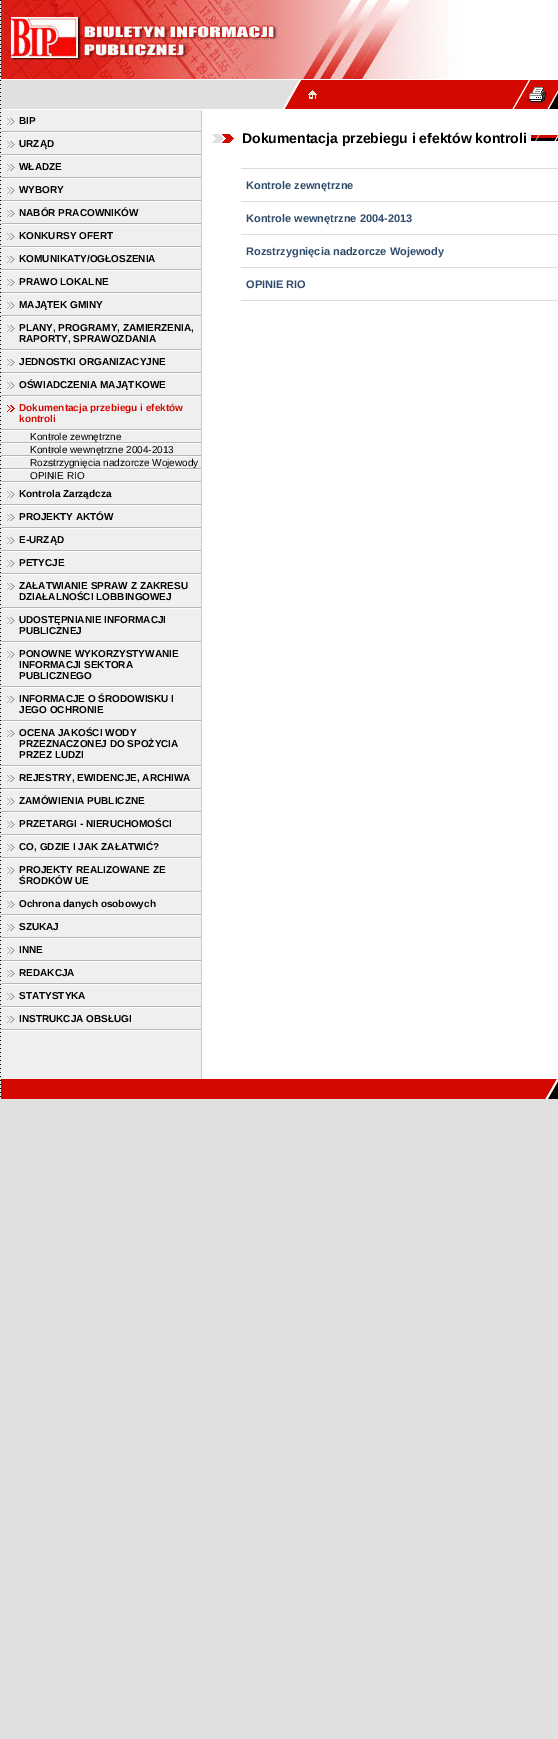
%!PS
<< /PageSize [558 1739] >> setpagedevice
/rgb { dup -16 bitshift 255 div exch dup -8 bitshift 255 and 255 div exch 255 and 255 div setrgbcolor } def
/font { [ exch dup neg 0 0 3 -1 roll 0 0 ] selectfont } def
/text { moveto show } def
/picture { 5 dict begin { /h /w /y /x /name } { exch def } forall
  gsave x y translate w h scale
  w h 8 [w 0 0 h 0 0] name (r) file false 3 colorimage grestore end } def
0 1739 translate 1 -1 scale
4 setmiterlimit
/s1 { /LiberationSans-Bold 10 font 16#000000 rgb } def
/s2 { /LiberationSans-Bold 10 font 16#D30900 rgb } def
/s3 { /LiberationSans-Regular 10 font 16#000000 rgb } def
/s4 { /LiberationSans-Bold 14 font 16#000000 rgb } def
/s5 { /LiberationSans-Bold 11 font 16#304C6C rgb } def
16#E0E0E0 rgb
0 0 558 1739 rectfill
(pic1.raw) 0 0 1 110 picture
(pic2.raw) 1 0 280 79 picture
(pic3.raw) 281 0 277 79 picture
16#FFFFFF rgb
1 79 557 1 rectfill
(pic4.raw) 282 80 19 29 picture
16#D30900 rgb
301 80 211 29 rectfill
(pic5.raw) 308 90 9 9 picture
(pic6.raw) 512 80 35 29 picture
(pic7.raw) 547 80 11 29 picture
16#FFFFFF rgb
1 109 557 1 rectfill
(pic8.raw) 0 110 1 989 picture
16#EFEFEF rgb
1 110 200 969 rectfill
(pic9.raw) 7 118 8 7 picture
s1
(BIP) 19 124 text
(pic10.raw) 1 131 200 2 picture
(pic9.raw) 7 141 8 7 picture
(URZĄD) 19 147 text
(pic10.raw) 1 154 200 2 picture
(pic9.raw) 7 164 8 7 picture
(WŁADZE) 19 170 text
(pic10.raw) 1 177 200 2 picture
(pic9.raw) 7 187 8 7 picture
(WYBORY) 19 193 text
(pic10.raw) 1 200 200 2 picture
(pic9.raw) 7 210 8 7 picture
(NABÓR PRACOWNIKÓW) 19 216 text
(pic10.raw) 1 223 200 2 picture
(pic9.raw) 7 233 8 7 picture
(KONKURSY OFERT) 19 239 text
(pic10.raw) 1 246 200 2 picture
(pic9.raw) 7 256 8 7 picture
(KOMUNIKATY/OGŁOSZENIA) 19 262 text
(pic10.raw) 1 269 200 2 picture
(pic9.raw) 7 279 8 7 picture
(PRAWO LOKALNE) 19 285 text
(pic10.raw) 1 292 200 2 picture
(pic9.raw) 7 302 8 7 picture
(MAJĄTEK GMINY) 19 308 text
(pic10.raw) 1 315 200 2 picture
(pic9.raw) 7 325 8 7 picture
(PLANY, PROGRAMY, ZAMIERZENIA,) 19 331 text
(RAPORTY, SPRAWOZDANIA) 19 342 text
(pic10.raw) 1 349 200 2 picture
(pic9.raw) 7 359 8 7 picture
(JEDNOSTKI ORGANIZACYJNE) 19 365 text
(pic10.raw) 1 372 200 2 picture
(pic9.raw) 7 382 8 7 picture
(OŚWIADCZENIA MAJĄTKOWE) 19 388 text
(pic10.raw) 1 395 200 2 picture
(pic11.raw) 7 405 8 7 picture
s2
(Dokumentacja przebiegu i efektów) 19 411 text
(kontroli) 19 422 text
(pic10.raw) 1 429 200 2 picture
(pic12.raw) 48 434 7 7 picture
(pic10.raw) 1 442 200 2 picture
s3
(Kontrole zewnętrzne) 30 440 text
(pic12.raw) 48 447 7 7 picture
(pic10.raw) 1 455 200 2 picture
(Kontrole wewnętrzne 2004-2013) 30 453 text
(pic12.raw) 48 460 7 7 picture
(pic10.raw) 1 468 200 2 picture
(Rozstrzygnięcia nadzorcze Wojewody) 30 466 text
(pic12.raw) 48 473 7 7 picture
(OPINIE RIO) 30 479 text
(pic10.raw) 1 481 200 2 picture
(pic9.raw) 7 491 8 7 picture
s1
(Kontrola Zarządcza) 19 497 text
(pic10.raw) 1 504 200 2 picture
(pic9.raw) 7 514 8 7 picture
(PROJEKTY AKTÓW) 19 520 text
(pic10.raw) 1 527 200 2 picture
(pic9.raw) 7 537 8 7 picture
(E-URZĄD) 19 543 text
(pic10.raw) 1 550 200 2 picture
(pic9.raw) 7 560 8 7 picture
(PETYCJE) 19 566 text
(pic10.raw) 1 573 200 2 picture
(pic9.raw) 7 583 8 7 picture
(ZAŁATWIANIE SPRAW Z ZAKRESU) 19 589 text
(DZIAŁALNOŚCI LOBBINGOWEJ) 19 600 text
(pic10.raw) 1 607 200 2 picture
(pic9.raw) 7 617 8 7 picture
(UDOSTĘPNIANIE INFORMACJI) 19 623 text
(PUBLICZNEJ) 19 634 text
(pic10.raw) 1 641 200 2 picture
(pic9.raw) 7 651 8 7 picture
(PONOWNE WYKORZYSTYWANIE) 19 657 text
(INFORMACJI SEKTORA) 19 668 text
(PUBLICZNEGO) 19 679 text
(pic10.raw) 1 686 200 2 picture
(pic9.raw) 7 696 8 7 picture
(INFORMACJE O ŚRODOWISKU I) 19 702 text
(JEGO OCHRONIE) 19 713 text
(pic10.raw) 1 720 200 2 picture
(pic9.raw) 7 730 8 7 picture
(OCENA JAKOŚCI WODY) 19 736 text
(PRZEZNACZONEJ DO SPOŻYCIA) 19 747 text
(PRZEZ LUDZI) 19 758 text
(pic10.raw) 1 765 200 2 picture
(pic9.raw) 7 775 8 7 picture
(REJESTRY, EWIDENCJE, ARCHIWA) 19 781 text
(pic10.raw) 1 788 200 2 picture
(pic9.raw) 7 798 8 7 picture
(ZAMÓWIENIA PUBLICZNE) 19 804 text
(pic10.raw) 1 811 200 2 picture
(pic9.raw) 7 821 8 7 picture
(PRZETARGI - NIERUCHOMOŚCI) 19 827 text
(pic10.raw) 1 834 200 2 picture
(pic9.raw) 7 844 8 7 picture
(CO, GDZIE I JAK ZAŁATWIĆ?) 19 850 text
(pic10.raw) 1 857 200 2 picture
(pic9.raw) 7 867 8 7 picture
(PROJEKTY REALIZOWANE ZE) 19 873 text
(ŚRODKÓW UE) 19 884 text
(pic10.raw) 1 891 200 2 picture
(pic9.raw) 7 901 8 7 picture
(Ochrona danych osobowych) 19 907 text
(pic10.raw) 1 914 200 2 picture
(pic9.raw) 7 924 8 7 picture
(SZUKAJ) 19 930 text
(pic10.raw) 1 937 200 2 picture
(pic9.raw) 7 947 8 7 picture
(INNE) 19 953 text
(pic10.raw) 1 960 200 2 picture
(pic9.raw) 7 970 8 7 picture
(REDAKCJA) 19 976 text
(pic10.raw) 1 983 200 2 picture
(pic9.raw) 7 993 8 7 picture
(STATYSTYKA) 19 999 text
(pic10.raw) 1 1006 200 2 picture
(pic9.raw) 7 1016 8 7 picture
(INSTRUKCJA OBSŁUGI) 19 1022 text
(pic10.raw) 1 1029 200 2 picture
16#CBCBCB rgb
201 110 1 969 rectfill
16#FFFFFF rgb
202 110 356 969 rectfill
(pic13.raw) 212 134 22 9 picture
(pic14.raw) 531 135 27 6 picture
s4
(Dokumentacja przebiegu i efektów kontroli) 242 143 text
16#DCDCDC rgb
241 168 317 1 rectfill
s5
(Kontrole zewnętrzne) 246 189 text
16#DCDCDC rgb
241 201 317 1 rectfill
s5
(Kontrole wewnętrzne 2004-2013) 246 222 text
16#DCDCDC rgb
241 234 317 1 rectfill
s5
(Rozstrzygnięcia nadzorcze Wojewody) 246 255 text
16#DCDCDC rgb
241 267 317 1 rectfill
s5
(OPINIE RIO) 246 288 text
16#DCDCDC rgb
241 300 317 1 rectfill
16#D30900 rgb
1 1079 544 20 rectfill
(pic15.raw) 545 1079 13 20 picture
showpage
